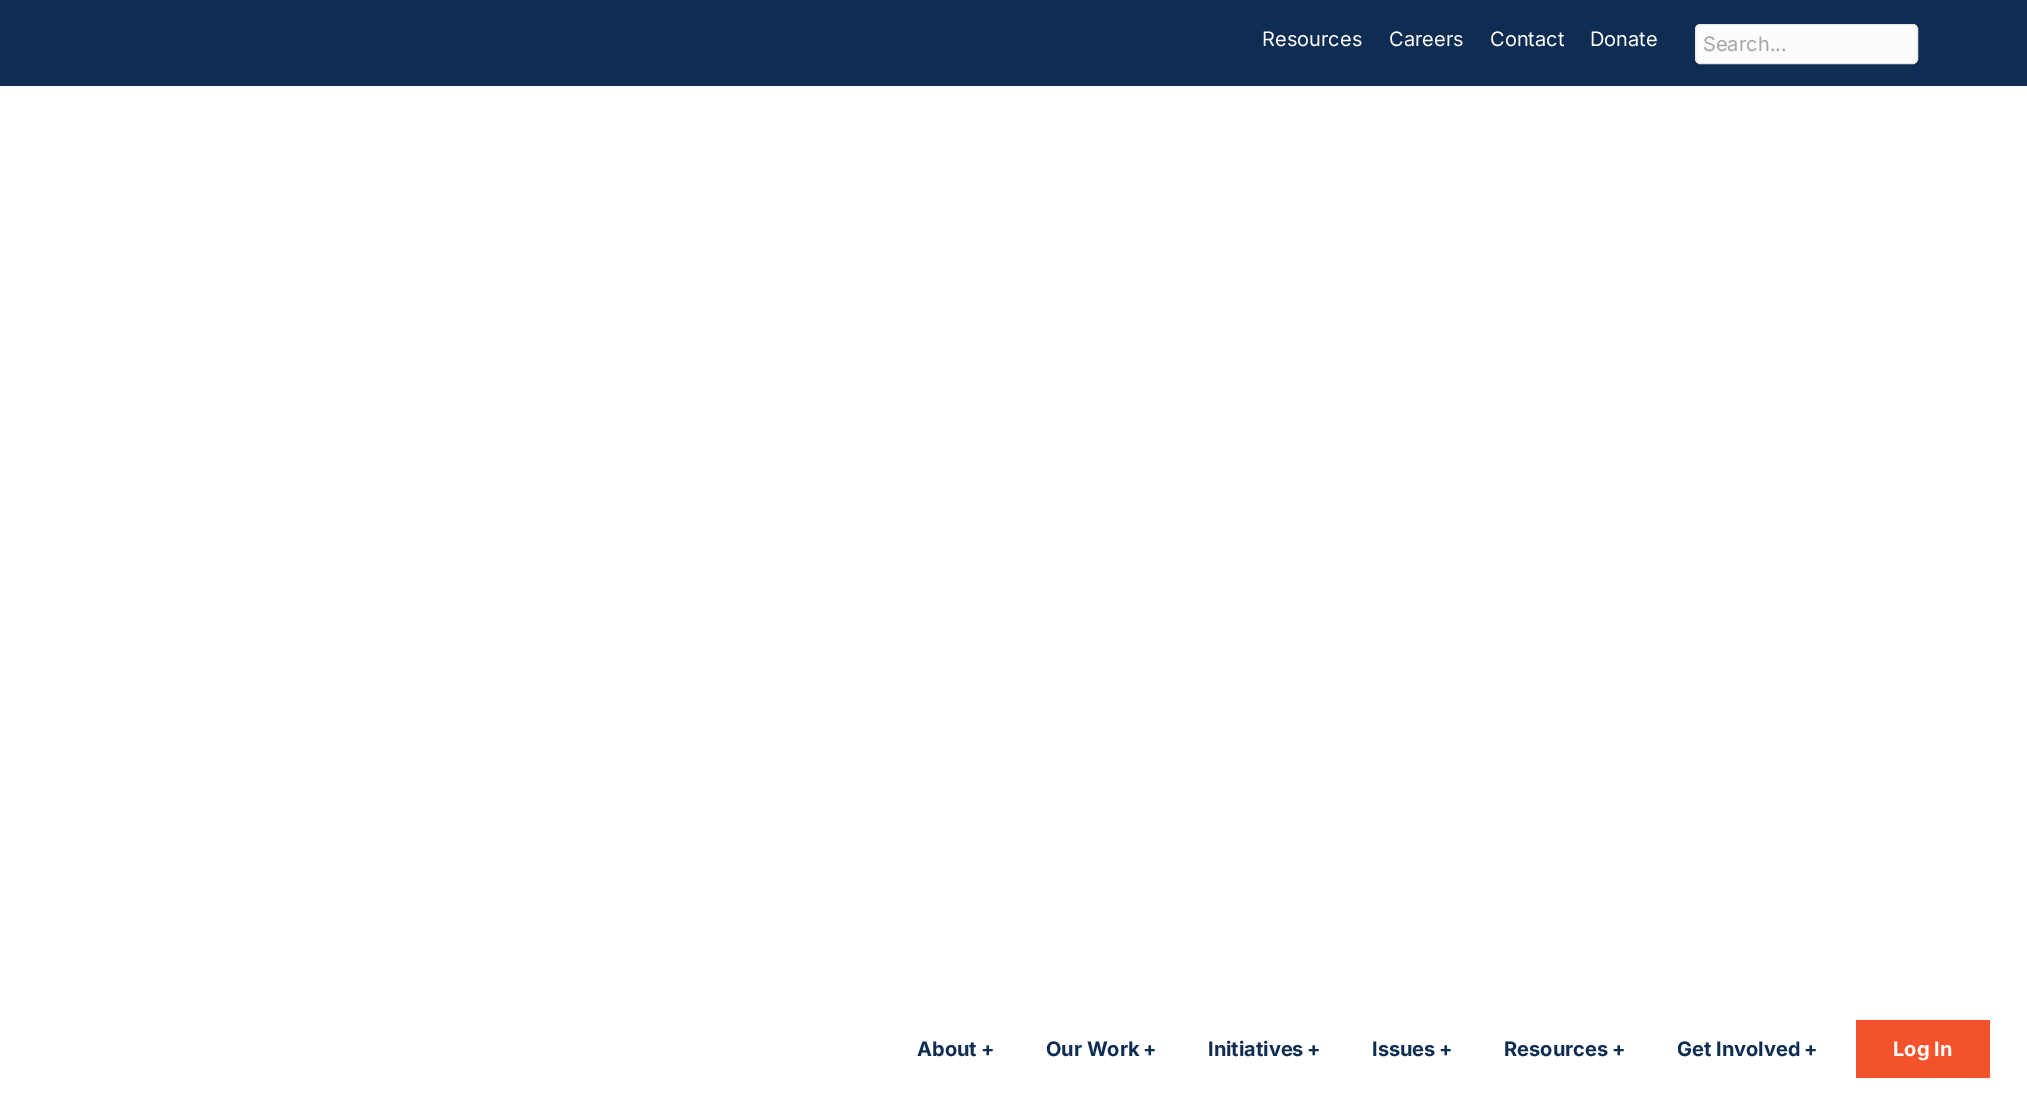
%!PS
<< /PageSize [2027 1098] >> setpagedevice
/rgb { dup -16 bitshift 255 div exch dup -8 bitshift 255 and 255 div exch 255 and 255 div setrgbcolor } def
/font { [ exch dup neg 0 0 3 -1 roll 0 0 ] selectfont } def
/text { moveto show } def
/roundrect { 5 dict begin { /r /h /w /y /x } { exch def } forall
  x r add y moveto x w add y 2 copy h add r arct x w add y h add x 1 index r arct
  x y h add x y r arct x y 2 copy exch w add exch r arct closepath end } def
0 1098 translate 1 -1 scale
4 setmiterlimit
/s1 { /Inter-Regular 20 font 16#FFFFFF rgb } def
/s2 { /Inter-Regular 20 font 16#A6A6A6 rgb } def
/s3 { /Inter-Bold 20 font 16#0F2D53 rgb } def
/s4 { /Inter-Bold 20 font 16#FFFFFF rgb } def
16#0F2D53 rgb
0 0 2027 1098 rectfill
s1
(Resources) 1262 46 text
(Careers) 1389 46 text
(Contact) 1490 46 text
(Donate) 1590 46 text
16#FCFCFC rgb
1695.5 24.5 222 39 4.5 roundrect gsave fill grestore
16#E6E6E6 rgb
stroke
s2
(Search...) 1703 51 text
16#FFFFFF rgb
0 86 2027 1012 rectfill
s3
(About) 917 1056 text
(+) 981 1056 text
(Our Work) 1046 1056 text
(+) 1143 1056 text
(Initiatives) 1208 1056 text
(+) 1307 1056 text
(Issues) 1372 1056 text
(+) 1439 1056 text
(Resources) 1504 1056 text
(+) 1612 1056 text
(Get Involved) 1677 1056 text
(+) 1804 1056 text
16#F3522B rgb
1856 1020 134 58 rectfill
s4
(Log In) 1893 1056 text
showpage
